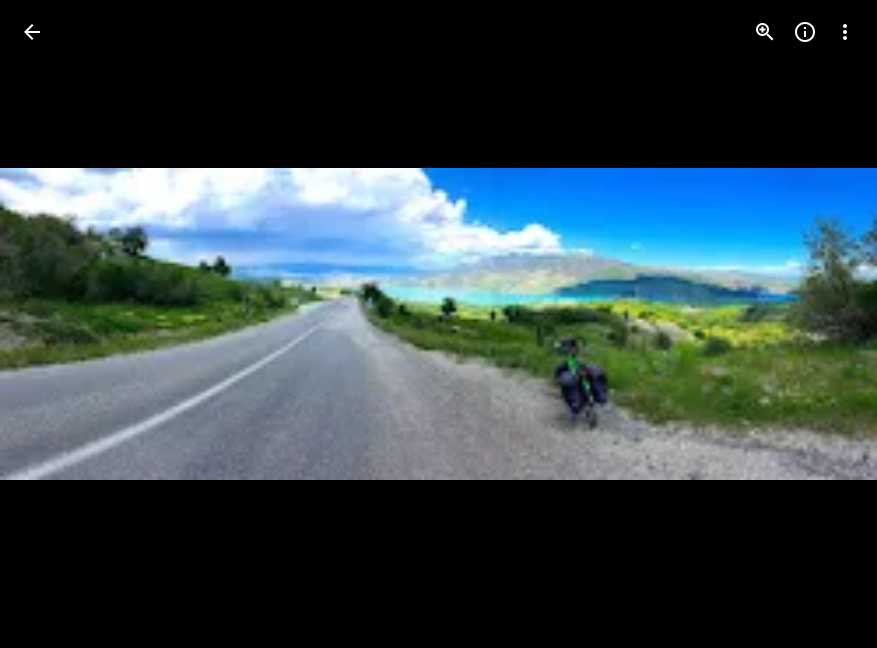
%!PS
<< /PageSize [877 648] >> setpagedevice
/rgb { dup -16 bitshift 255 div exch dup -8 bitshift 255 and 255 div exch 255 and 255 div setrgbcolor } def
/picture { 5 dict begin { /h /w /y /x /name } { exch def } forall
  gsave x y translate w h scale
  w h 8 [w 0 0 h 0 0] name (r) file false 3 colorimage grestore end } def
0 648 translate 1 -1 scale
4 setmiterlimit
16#000000 rgb
0 0 877 648 rectfill
(pic1.raw) 24 24 16 16 picture
(pic2.raw) 756 23 18 18 picture
(pic3.raw) 795 22 20 20 picture
(pic4.raw) 843 24 4 16 picture
(pic5.raw) 0 168 877 312 picture
showpage
